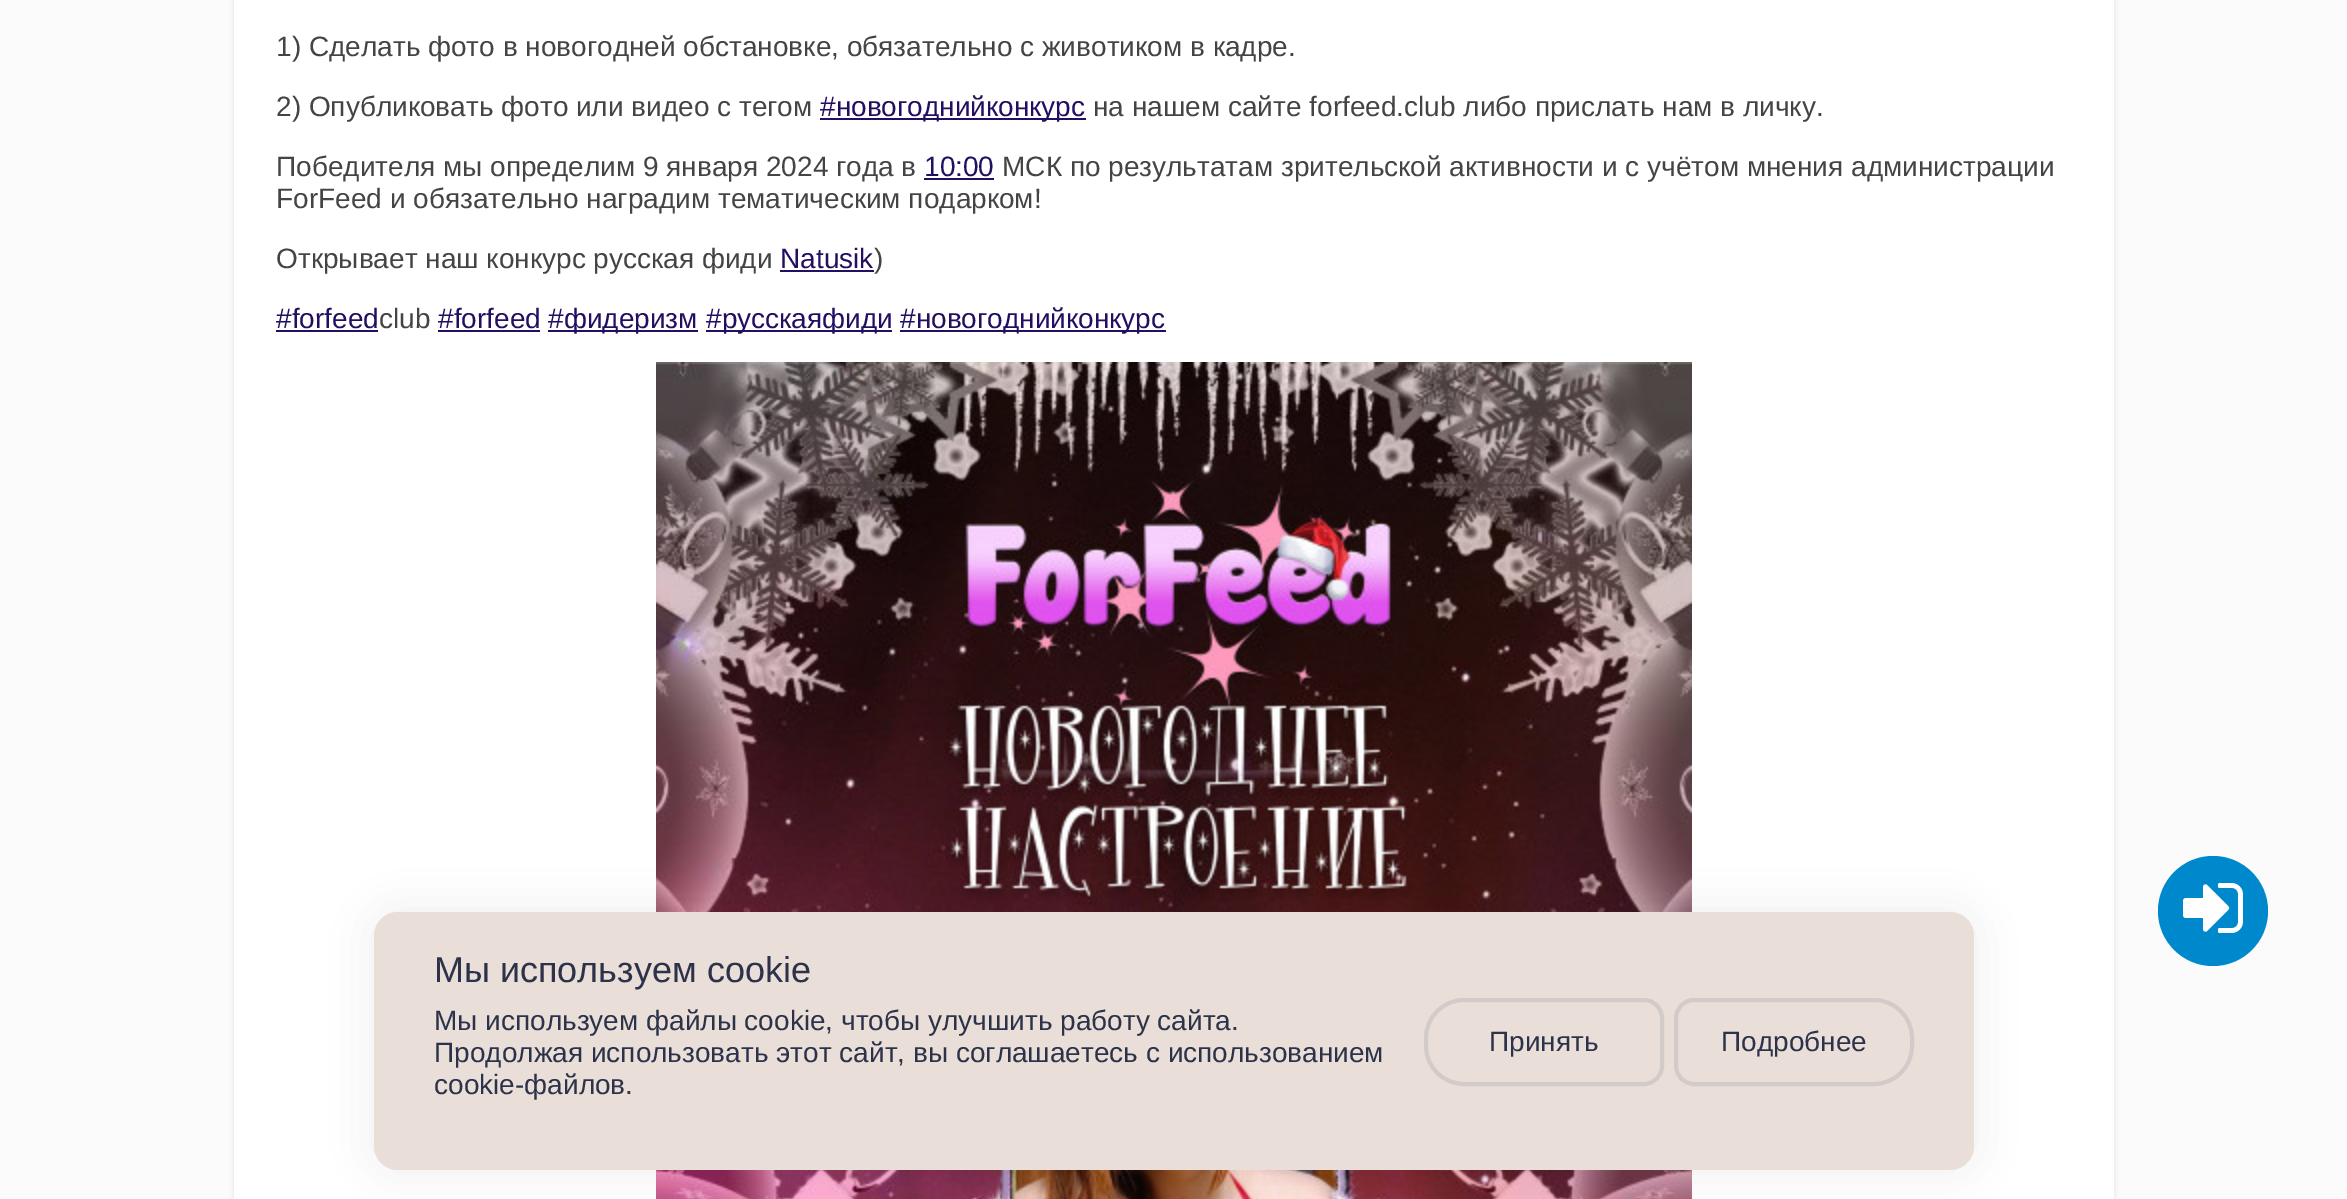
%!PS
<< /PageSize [2347 1199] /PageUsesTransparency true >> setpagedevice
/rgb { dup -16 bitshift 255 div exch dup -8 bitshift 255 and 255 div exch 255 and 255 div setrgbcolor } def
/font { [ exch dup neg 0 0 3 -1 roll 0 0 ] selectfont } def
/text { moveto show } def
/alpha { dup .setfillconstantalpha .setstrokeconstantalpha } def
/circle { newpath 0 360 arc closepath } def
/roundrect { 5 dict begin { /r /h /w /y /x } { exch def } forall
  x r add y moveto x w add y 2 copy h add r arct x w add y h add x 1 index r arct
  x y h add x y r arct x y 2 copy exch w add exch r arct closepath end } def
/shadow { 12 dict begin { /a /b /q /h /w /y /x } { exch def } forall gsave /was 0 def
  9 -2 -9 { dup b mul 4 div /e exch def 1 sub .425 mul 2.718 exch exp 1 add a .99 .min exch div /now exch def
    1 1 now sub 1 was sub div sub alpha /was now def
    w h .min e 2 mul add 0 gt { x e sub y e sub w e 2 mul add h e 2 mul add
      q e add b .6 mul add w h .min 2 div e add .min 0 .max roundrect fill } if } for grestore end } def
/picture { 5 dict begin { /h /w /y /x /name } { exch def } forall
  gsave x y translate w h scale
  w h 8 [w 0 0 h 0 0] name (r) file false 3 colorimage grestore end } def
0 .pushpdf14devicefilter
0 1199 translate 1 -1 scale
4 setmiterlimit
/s1 { /LiberationSans-Regular 28 font 16#444444 rgb } def
/s2 { /LiberationSans-Regular 28 font 16#240E62 rgb } def
/s3 { /LiberationSans-Regular 36 font 16#2C3249 rgb } def
/s4 { /LiberationSans-Regular 28 font 16#2C3249 rgb } def
16#FBFBFB rgb
0 0 2347 1199 rectfill
16#000000 rgb
234 -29 1880 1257 20 3 0.1 shadow
16#FFFFFF rgb
234 0 1880 1199 rectfill
s1
(1\) Сделать фото в новогодней обстановке, обязательно с животиком в кадре.) 276 56 text
(2\) Опубликовать фото или видео с тегом) 276 116 text
16#240E62 rgb
820 118 266 2 rectfill
(#новогоднийконкурс) 820 116 text
s1
(на нашем сайте forfeed.club либо прислать нам в личку.) 1093 116 text
(Победителя мы определим 9 января 2024 года в) 276 176 text
s2
(10:00) 924 176 text
924 178 70 2 rectfill
s1
(МСК по результатам зрительской активности и с учётом мнения администрации) 1002 176 text
(ForFeed и обязательно наградим тематическим подарком!) 276 208 text
(Открывает наш конкурс русская фиди) 276 268 text
s2
(Natusik) 780 268 text
780 270 94 2 rectfill
s1
(\)) 874 268 text
s2
(#forfeed) 276 328 text
276 330 102 2 rectfill
s1
(club) 379 328 text
s2
(#forfeed) 438 328 text
438 330 102 2 rectfill
548 330 150 2 rectfill
(#фидеризм) 548 328 text
706 330 186 2 rectfill
(#русскаяфиди) 706 328 text
900 330 266 2 rectfill
(#новогоднийконкурс) 900 328 text
(pic1.raw) 656 362 1036 837 picture
16#0088CC rgb
2213 911 55 circle fill
(pic2.raw) 2183 883 60 50 picture
16#2C3249 rgb
374 912 1600 258 24 20 0.08 shadow
16#EADFD8 rgb
374 912 1600 258 24 roundrect fill
s3
(Мы используем cookie) 434 982 text
s4
(Мы используем файлы cookie, чтобы улучшить работу сайта.) 434 1030 text
(Продолжая использовать этот сайт, вы соглашаетесь с использованием) 434 1062 text
(cookie-файлов.) 434 1094 text
16#D3CBC9 rgb
4 setlinewidth
1464 1000 moveto 1644 1000 lineto 1654 1000 1662 1008 1662 1018 curveto 1662 1066 lineto 1662 1076 1654 1084 1644 1084 curveto 1464 1084 lineto 1443 1084 1426 1067 1426 1046 curveto 1426 1038 lineto 1426 1017 1443 1000 1464 1000 curveto closepath stroke
s4
(Принять) 1489 1051 text
16#D3CBC9 rgb
1694 1000 moveto 1874 1000 lineto 1895 1000 1912 1017 1912 1038 curveto 1912 1046 lineto 1912 1067 1895 1084 1874 1084 curveto 1694 1084 lineto 1684 1084 1676 1076 1676 1066 curveto 1676 1018 lineto 1676 1008 1684 1000 1694 1000 curveto closepath stroke
s4
(Подробнее) 1721 1051 text
.poppdf14devicefilter showpage
